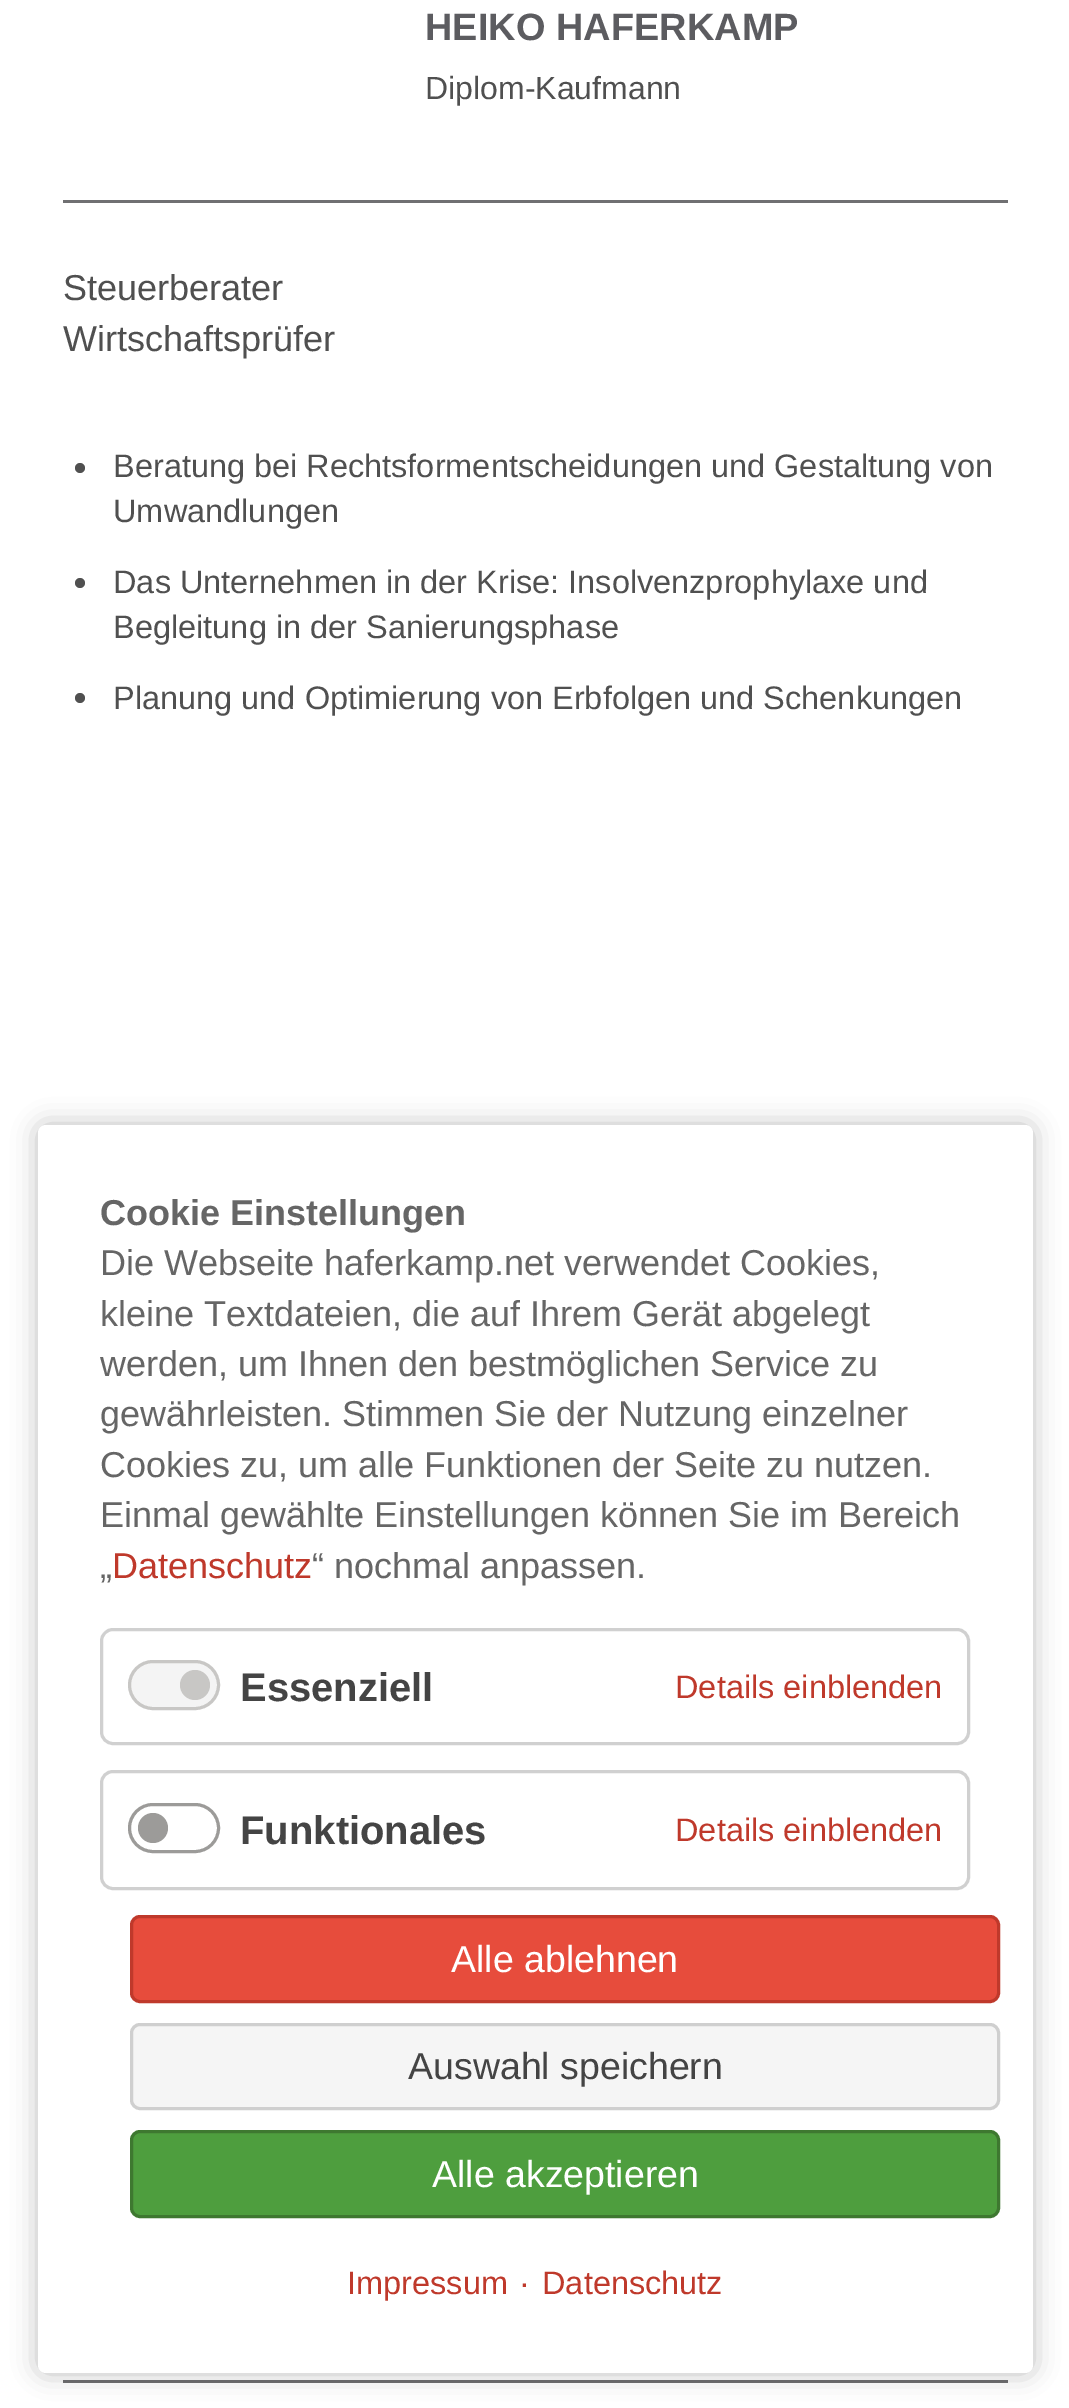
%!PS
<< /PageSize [1069 2408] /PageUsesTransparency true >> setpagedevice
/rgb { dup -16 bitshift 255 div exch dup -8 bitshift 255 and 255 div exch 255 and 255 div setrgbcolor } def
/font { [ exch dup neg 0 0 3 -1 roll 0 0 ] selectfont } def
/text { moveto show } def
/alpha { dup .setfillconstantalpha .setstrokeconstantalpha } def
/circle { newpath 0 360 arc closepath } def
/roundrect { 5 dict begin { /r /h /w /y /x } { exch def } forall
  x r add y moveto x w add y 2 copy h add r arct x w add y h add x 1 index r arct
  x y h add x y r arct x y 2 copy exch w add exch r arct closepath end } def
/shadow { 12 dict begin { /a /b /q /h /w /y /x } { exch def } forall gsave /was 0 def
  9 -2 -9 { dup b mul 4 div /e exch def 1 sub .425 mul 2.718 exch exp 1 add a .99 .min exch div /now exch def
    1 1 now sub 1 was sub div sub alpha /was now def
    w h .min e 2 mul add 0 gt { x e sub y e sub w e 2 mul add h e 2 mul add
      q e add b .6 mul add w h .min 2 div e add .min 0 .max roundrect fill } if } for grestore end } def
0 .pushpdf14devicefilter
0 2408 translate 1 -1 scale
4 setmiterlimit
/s1 { /LiberationSans-Bold 38 font 16#5C5C60 rgb } def
/s2 { /LiberationSans-Regular 32 font 16#505050 rgb } def
/s3 { /LiberationSans-Regular 36 font 16#505050 rgb } def
/s4 { /LiberationSans-Regular 32.5 font 16#505050 rgb } def
/s5 { /LiberationSans-Bold 36 font 16#666666 rgb } def
/s6 { /LiberationSans-Regular 36 font 16#666666 rgb } def
/s7 { /LiberationSans-Regular 36 font 16#BF392B rgb } def
/s8 { /LiberationSans-Bold 40 font 16#444444 rgb } def
/s9 { /LiberationSans-Regular 32.5 font 16#BF392B rgb } def
/s10 { /LiberationSans-Regular 37.5 font 16#FFFFFF rgb } def
/s11 { /LiberationSans-Regular 37.5 font 16#444444 rgb } def
16#FFFFFF rgb
0 0 1069 2408 rectfill
s1
(HEIKO HAFERKAMP) 425 40 text
s2
(Diplom-Kaufmann) 425 99 text
16#707072 rgb
63 200 945 3 rectfill
s3
(Steuerberater) 63 300 text
(Wirtschaftsprüfer) 63 351 text
80 468 5 circle fill
s4
(Beratung bei Rechtsformentscheidungen und Gestaltung von) 113 477 text
(Umwandlungen) 113 522 text
80 583 5 circle fill
(Das Unternehmen in der Krise: Insolvenzprophylaxe und) 113 593 text
(Begleitung in der Sanierungsphase) 113 638 text
80 698 5 circle fill
(Planung und Optimierung von Erbfolgen und Schenkungen) 113 709 text
16#707072 rgb
63 2380 945 3 rectfill
16#000000 rgb
38 1125 995 1248 8 12.5 0.25 shadow
16#FFFFFF rgb
38 1125 995 1248 8 roundrect fill
s5
(Cookie Einstellungen) 100 1225 text
s6
(Die Webseite haferkamp.net verwendet Cookies,) 100 1275 text
(kleine Textdateien, die auf Ihrem Gerät abgelegt) 100 1326 text
(werden, um Ihnen den bestmöglichen Service zu) 100 1376 text
(gewährleisten. Stimmen Sie der Nutzung einzelner) 100 1426 text
(Cookies zu, um alle Funktionen der Seite zu nutzen.) 100 1477 text
(Einmal gewählte Einstellungen können Sie im Bereich) 100 1527 text
(„) 100 1578 text
s7
(Datenschutz) 112 1578 text
s6
(“ nochmal anpassen.) 312 1578 text
16#D0D0D0 rgb
3 setlinewidth
101.5 1629.5 867 114 11.5 roundrect stroke
16#FCFCFC rgb
0.4 setlinewidth
103 1631 moveto 103.5 1632 lineto 104.5 1630.5 lineto stroke
16#F4F4F4 rgb
129.5 1661.5 89 47 23.5 roundrect gsave fill grestore
16#C8C7C5 rgb
3 setlinewidth
stroke
195 1685 15 circle fill
s8
(Essenziell) 240 1701 text
s9
(Details einblenden) 675 1698 text
16#D0D0D0 rgb
101.5 1771.5 867 117 11.5 roundrect stroke
16#9C9B99 rgb
129.5 1804.5 89 47 23.5 roundrect stroke
153 1828 15 circle fill
s8
(Funktionales) 240 1844 text
s9
(Details einblenden) 675 1841 text
16#E74C3C rgb
131.5 1916.5 867 85 8.5 roundrect gsave fill grestore
16#BF392B rgb
stroke
s10
(Alle ablehnen) 451 1972 text
16#F5F5F5 rgb
131.5 2024.5 867 84 8.5 roundrect gsave fill grestore
16#CFCFCF rgb
stroke
s11
(Auswahl speichern) 408 2079 text
16#4E9E3E rgb
131.5 2131.5 867 85 8.5 roundrect gsave fill grestore
16#3E7830 rgb
stroke
s10
(Alle akzeptieren) 432 2187 text
s9
(Impressum) 347 2294 text
(·) 519 2294 text
(Datenschutz) 542 2294 text
.poppdf14devicefilter showpage
